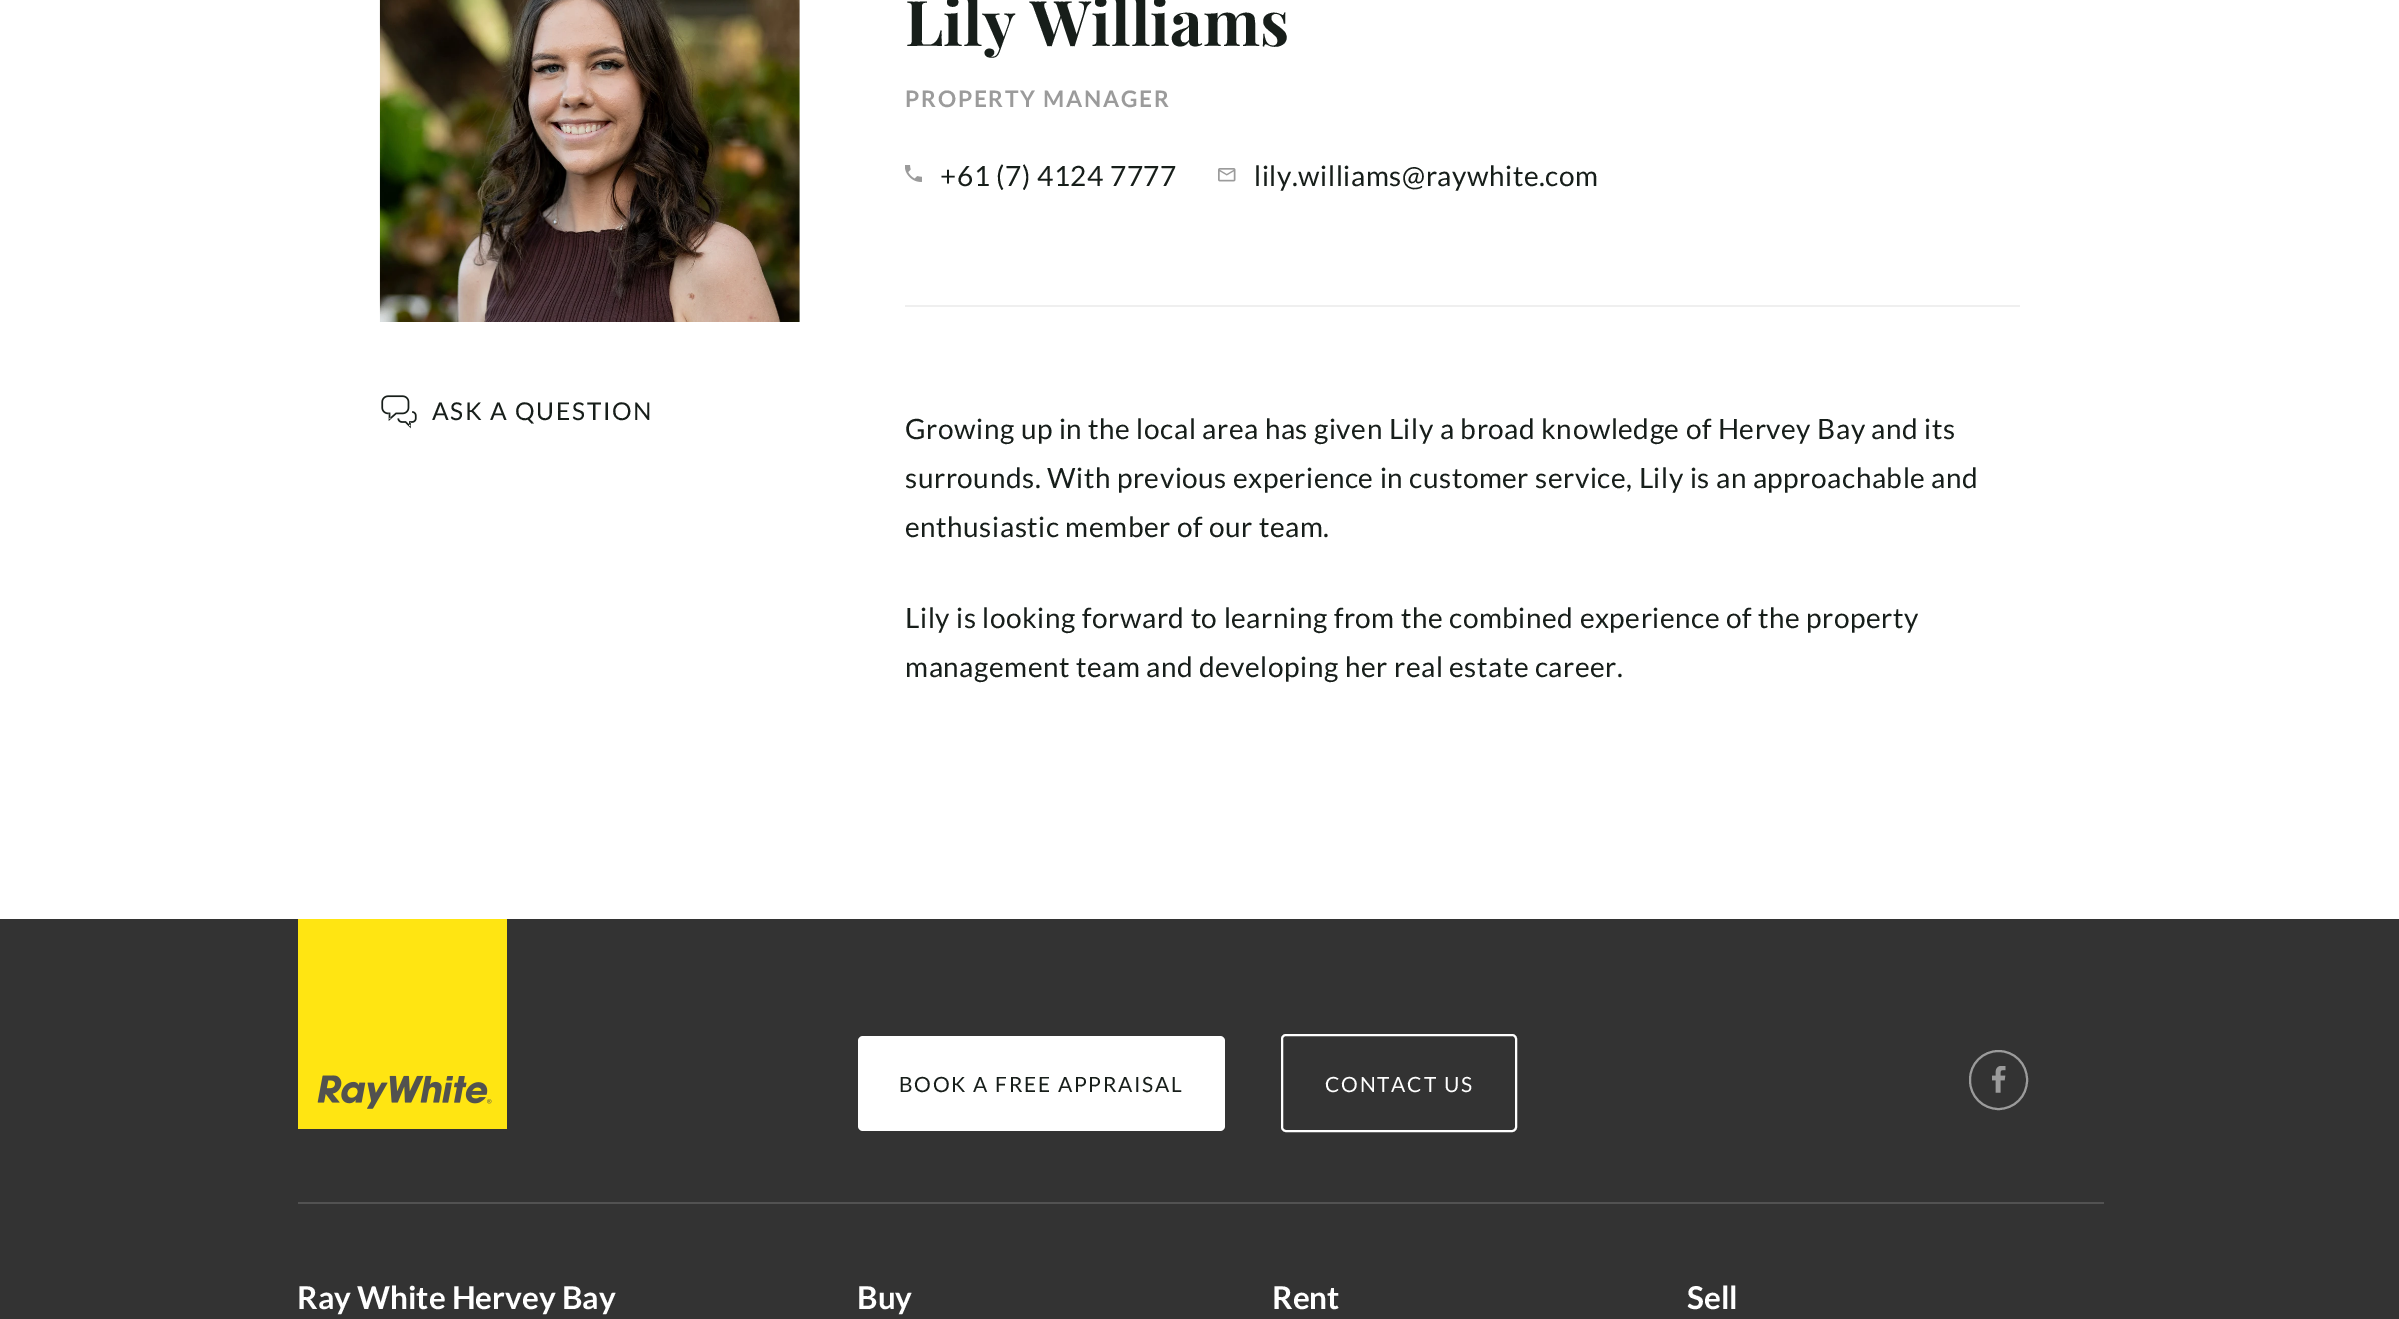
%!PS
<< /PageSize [2399 1319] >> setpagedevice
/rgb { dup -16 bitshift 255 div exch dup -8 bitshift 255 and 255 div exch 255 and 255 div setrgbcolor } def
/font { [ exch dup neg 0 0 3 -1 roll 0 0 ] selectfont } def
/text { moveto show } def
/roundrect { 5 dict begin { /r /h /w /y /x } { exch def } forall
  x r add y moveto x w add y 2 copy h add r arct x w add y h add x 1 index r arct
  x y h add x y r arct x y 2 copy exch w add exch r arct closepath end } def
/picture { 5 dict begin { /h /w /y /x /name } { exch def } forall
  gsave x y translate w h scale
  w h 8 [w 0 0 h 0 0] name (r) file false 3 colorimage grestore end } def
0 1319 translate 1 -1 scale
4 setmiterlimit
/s1 { /PlayfairDisplay-Bold 63 font 16#171E1A rgb } def
/s2 { /Lato-Bold 31.5 font 16#FFFFFF rgb } def
16#FFFFFF rgb
0 0 2399 1319 rectfill
16#EFEFEF rgb
799 0 1 322 rectfill
(pic1.raw) 379 0 421 322 picture
(pic2.raw) 381 395 36 34 picture
/Lato-Regular 24.5 font
16#171E1A rgb
432 420 moveto 1.75 0 (ASK A QUESTION) ashow
s1
(Lily Williams) 905 46 text
/Lato-Bold 22.75 font
16#9B9B9B rgb
905 107 moveto 1.75 0 (PROPERTY MANAGER) ashow
(pic3.raw) 905 165 17 17 picture
/Lato-Regular 28 font
16#171E1A rgb
940 186 moveto 0.53 0 (+61 \(7\) 4124 7777) ashow
(pic4.raw) 1218 168 18 14 picture
1254 186 moveto 0.53 0 (lily.williams@raywhite.com) ashow
16#EFEFEF rgb
905 305 1115 2 rectfill
16#171E1A rgb
905 439 moveto 0.53 0 (Growing up in the local area has given Lily a broad knowledge of Hervey Bay and its) ashow
905 488 moveto 0.53 0 (surrounds. With previous experience in customer service, Lily is an approachable and) ashow
905 537 moveto 0.53 0 (enthusiastic member of our team.) ashow
905 628 moveto 0.53 0 (Lily is looking forward to learning from the combined experience of the property) ashow
905 677 moveto 0.53 0 (management team and developing her real estate career.) ashow
16#333333 rgb
0 919 2399 400 rectfill
16#525252 rgb
298 1202 1806 2 rectfill
(pic5.raw) 298 919 209 210 picture
16#FFFFFF rgb
858 1036 367 95 5 roundrect fill
/Lato-Regular 21 font
16#171E1A rgb
899 1092 moveto 1.75 0 (BOOK A FREE APPRAISAL) ashow
16#FFFFFF rgb
2 setlinewidth
1282 1035 234 96 4 roundrect stroke
1325 1092 moveto 1.75 0 (CONTACT US) ashow
(pic6.raw) 1992 1066 14 27 picture
16#9B9B9B rgb
1970 1051 57 58 28.5 roundrect stroke
s2
(Ray White Hervey Bay) 297 1309 text
(Buy) 857 1309 text
(Rent) 1272 1309 text
(Sell) 1687 1309 text
showpage
